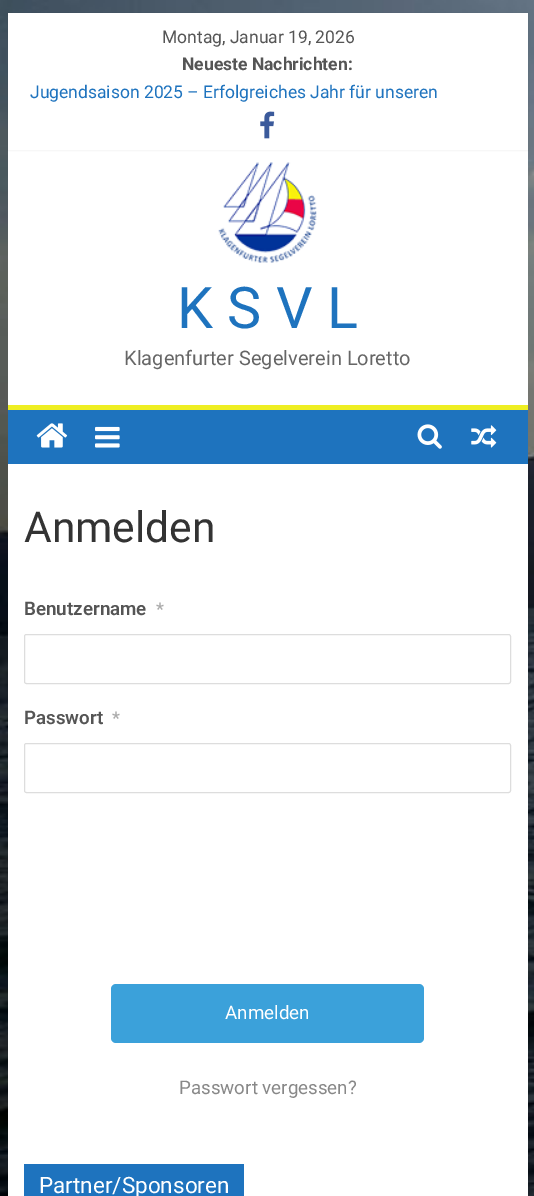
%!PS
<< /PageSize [534 1196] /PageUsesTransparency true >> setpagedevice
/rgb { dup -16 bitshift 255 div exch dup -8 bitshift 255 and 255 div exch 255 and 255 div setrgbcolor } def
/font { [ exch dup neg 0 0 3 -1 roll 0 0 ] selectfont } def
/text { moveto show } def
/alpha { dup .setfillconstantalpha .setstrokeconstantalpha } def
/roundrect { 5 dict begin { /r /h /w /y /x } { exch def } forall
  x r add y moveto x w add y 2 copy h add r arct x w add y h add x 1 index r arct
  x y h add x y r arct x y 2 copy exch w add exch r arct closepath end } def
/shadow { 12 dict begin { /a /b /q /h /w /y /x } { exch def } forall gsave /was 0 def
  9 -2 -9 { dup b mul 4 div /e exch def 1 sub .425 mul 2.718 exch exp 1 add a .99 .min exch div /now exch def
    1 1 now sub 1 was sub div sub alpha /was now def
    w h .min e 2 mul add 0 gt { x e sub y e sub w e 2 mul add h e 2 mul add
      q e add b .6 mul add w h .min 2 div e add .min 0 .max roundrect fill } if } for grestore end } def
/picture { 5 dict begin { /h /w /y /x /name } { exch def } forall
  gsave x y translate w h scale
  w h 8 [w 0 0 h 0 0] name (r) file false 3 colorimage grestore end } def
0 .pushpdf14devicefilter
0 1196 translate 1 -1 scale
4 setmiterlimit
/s1 { /Roboto-Regular 17.5 font 16#555555 rgb } def
/s2 { /Roboto-Bold 17.5 font 16#555555 rgb } def
/s3 { /Roboto-Regular 17.5 font 16#1E73BE rgb } def
/s4 { /Roboto-Regular 57.5 font 16#1E73BE rgb } def
/s5 { /Roboto-Regular 20 font 16#666666 rgb } def
/s6 { /Roboto-Regular 42.5 font 16#333333 rgb } def
/s7 { /Roboto-SemiBold 18.75 font 16#555555 rgb } def
/s8 { /Roboto-SemiBold 17.5 font 16#AAAAAA rgb } def
/s9 { /Roboto-Regular 18.75 font 16#FFFFFF rgb } def
/s10 { /Roboto-Regular 18.75 font 16#888888 rgb } def
/s11 { /Roboto-Regular 22.5 font 16#FFFFFF rgb } def
16#FFFFFF rgb
0 0 534 1196 rectfill
(pic1.raw) 0 0 534 1196 picture
8 150 520 255 rectfill
16#000000 rgb
8 13 520 137 0 1 0.1 shadow
16#FFFFFF rgb
8 13 520 137 rectfill
s1
(Montag, Januar 19, 2026) 162 43 text
s2
(Neueste Nachrichten:) 182 70 text
s3
(Jugendsaison 2025 – Erfolgreiches Jahr für unseren) 30 98 text
(pic2.raw) 260 111 15 28 picture
(pic3.raw) 218 162 99 101 picture
s4
(K S V L) 177 328 text
s5
(Klagenfurter Segelverein Loretto) 124 365 text
16#1E73BE rgb
8 410 520 54 rectfill
16#EEEE22 rgb
8 405 520 5 rectfill
(pic4.raw) 36 423 32 25 picture
(pic5.raw) 95 426 25 22 picture
(pic6.raw) 417 424 25 25 picture
(pic7.raw) 471 425 26 23 picture
16#FFFFFF rgb
8 464 520 732 rectfill
s6
(Anmelden) 24 542 text
s7
(Benutzername) 24 615 text
s8
(*) 156 615 text
16#DDDDDD rgb
24.5 634.5 486 49 2 roundrect stroke
s7
(Passwort) 24 724 text
s8
(*) 112 724 text
16#DDDDDD rgb
24.5 743.5 486 49 2 roundrect stroke
16#3BA1DA rgb
111 984 313 59 5 roundrect fill
s9
(Anmelden) 225 1019 text
s10
(Passwort vergessen?) 179 1094 text
16#1E73BE rgb
24 1164 220 32 rectfill
s11
(Partner/Sponsoren) 39 1193 text
.poppdf14devicefilter showpage
